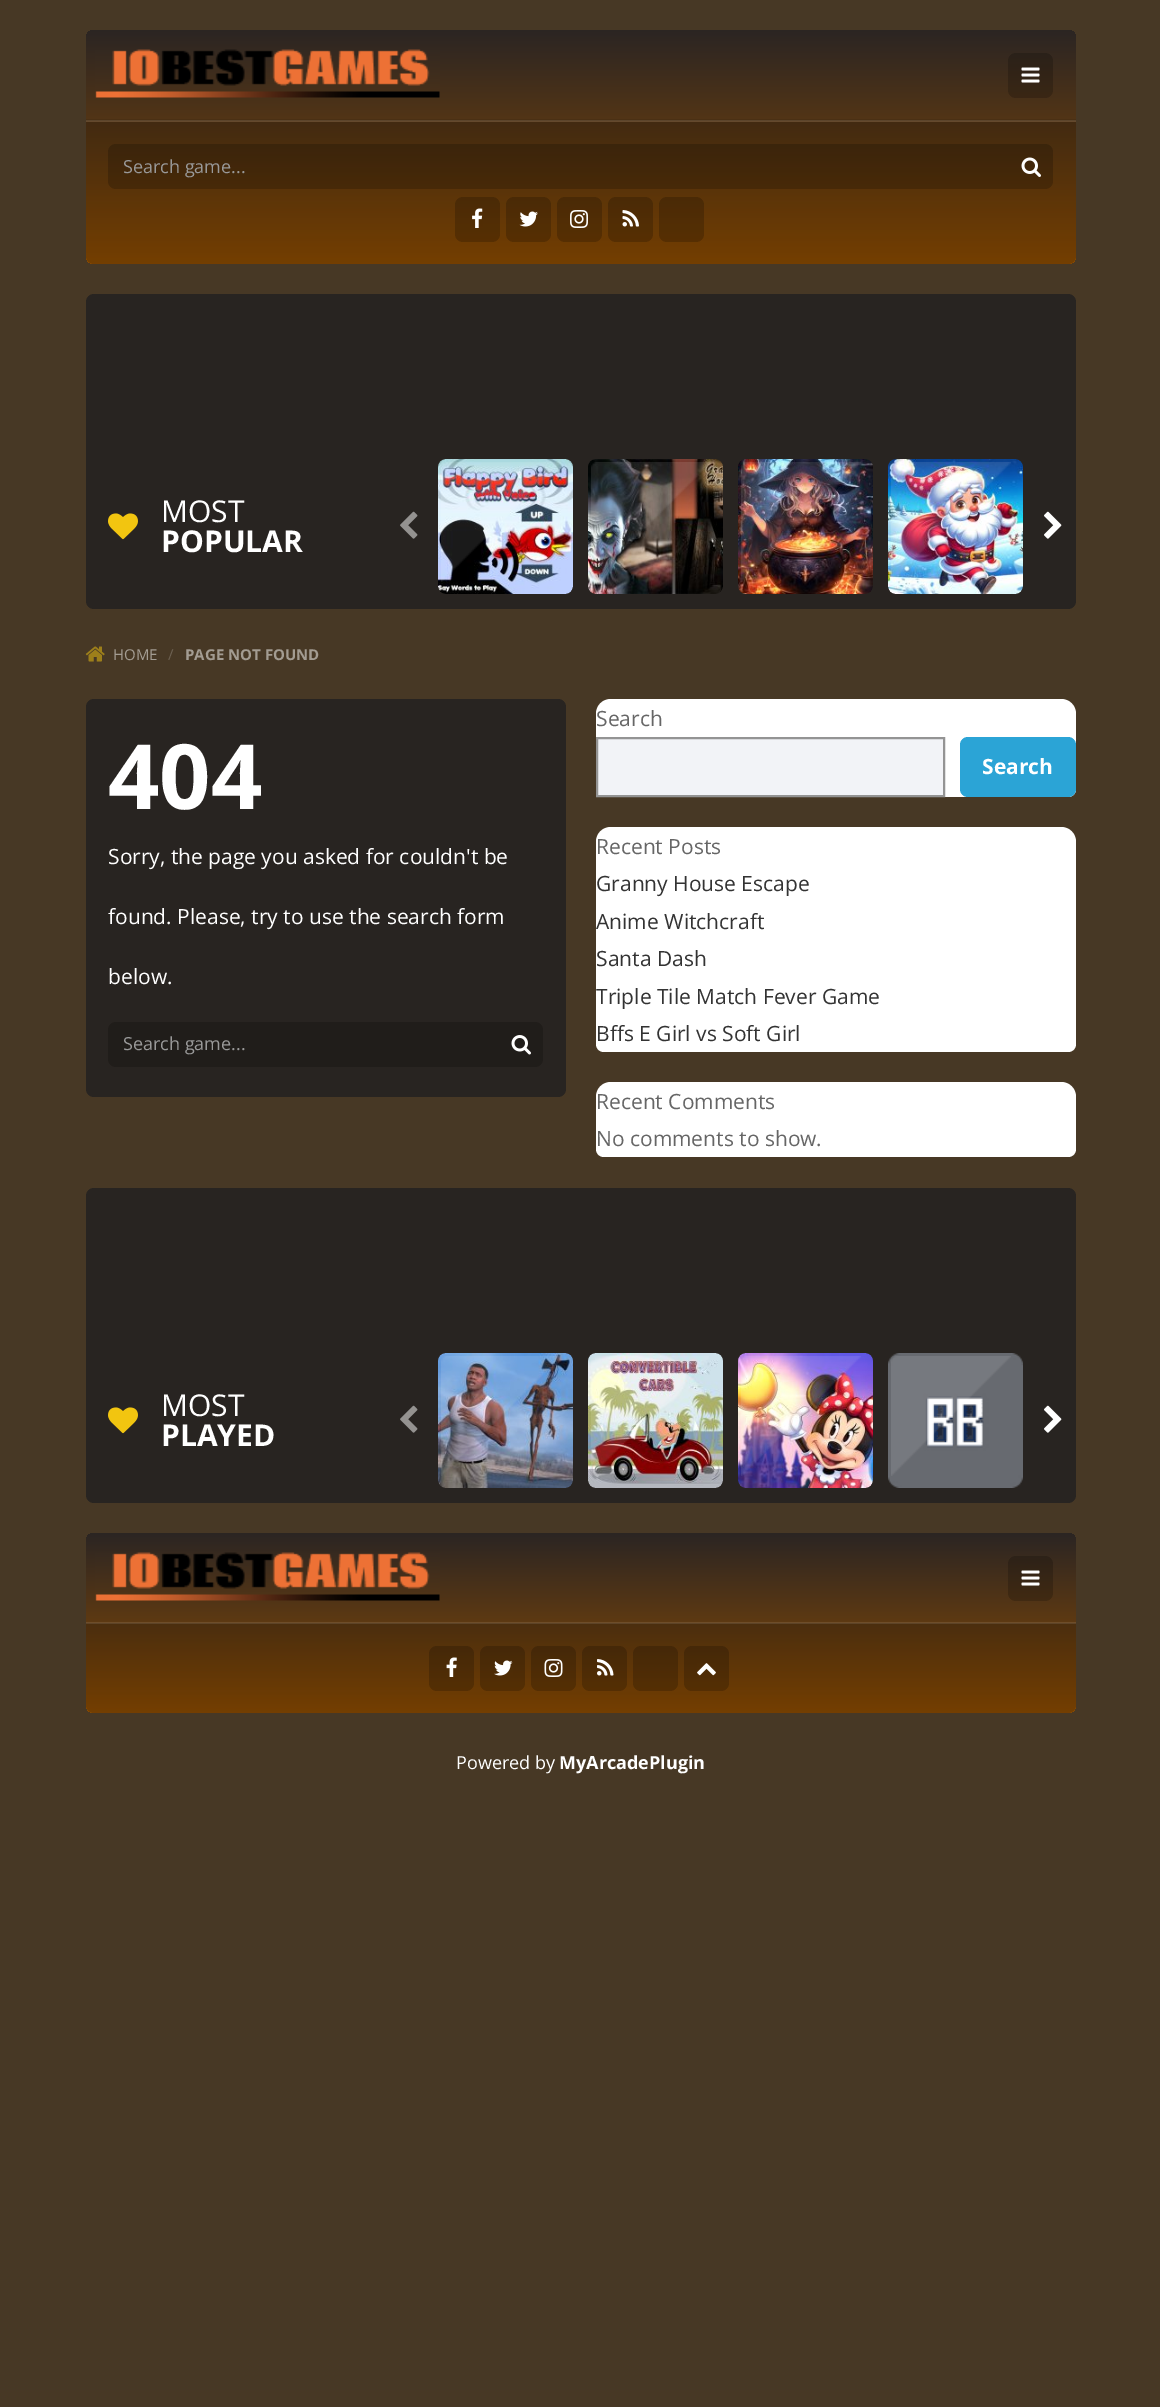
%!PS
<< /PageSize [1160 2407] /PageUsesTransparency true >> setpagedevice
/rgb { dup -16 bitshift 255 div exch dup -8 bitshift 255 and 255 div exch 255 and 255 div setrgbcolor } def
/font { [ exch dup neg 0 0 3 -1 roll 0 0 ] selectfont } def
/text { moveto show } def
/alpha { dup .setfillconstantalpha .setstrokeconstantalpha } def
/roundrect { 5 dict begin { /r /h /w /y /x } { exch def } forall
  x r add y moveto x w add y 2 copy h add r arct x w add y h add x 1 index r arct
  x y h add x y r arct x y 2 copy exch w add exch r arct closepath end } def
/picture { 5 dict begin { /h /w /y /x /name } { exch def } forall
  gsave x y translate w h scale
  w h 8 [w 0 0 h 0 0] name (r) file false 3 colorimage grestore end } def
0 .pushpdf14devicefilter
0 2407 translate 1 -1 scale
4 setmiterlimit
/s1 { /OpenSans-Regular 18 font 16#999999 rgb } def
/s2 { /OpenSans-Regular 30 font 16#FFFFFF rgb } def
/s3 { /OpenSans-Bold 30 font 16#FFFFFF rgb } def
/s4 { /OpenSans-Regular 15 font 16#A39C92 rgb } def
/s5 { /OpenSans-Regular 15 font 16#6C6051 rgb } def
/s6 { /OpenSans-Bold 15 font 16#A39C92 rgb } def
/s7 { /OpenSans-Bold 90 font 16#FFFFFF rgb } def
/s8 { /OpenSans-Regular 21 font 16#FFFFFF rgb } def
/s9 { /OpenSans-Regular 21 font 16#666666 rgb } def
/s10 { /OpenSans-Bold 21 font 16#FFFFFF rgb } def
/s11 { /OpenSans-Regular 21 font 16#333333 rgb } def
/s12 { /OpenSans-Regular 18 font 16#FFFFFF rgb } def
/s13 { /OpenSans-Bold 18 font 16#FFFFFF rgb } def
16#473825 rgb
0 0 1160 2407 rectfill
gsave 86 30 990 234 8 roundrect clip newpath
<< /ShadingType 2 /ColorSpace /DeviceRGB /Coords [581 30 581 264] /Extend [true true] /Function << /FunctionType 2 /Domain [0 1] /C0 [0.169 0.145 0.137] /C1 [0.569 0.306 0.004] /N 1 >> >> shfill grestore
gsave 86 121 moveto 1076 121 lineto 1076 122 lineto 86 122 lineto closepath clip newpath
<< /ShadingType 2 /ColorSpace /DeviceRGB /Coords [581 30 581 264] /Extend [true true] /Function << /FunctionType 2 /Domain [0 1] /C0 [0.251 0.231 0.224] /C1 [0.612 0.376 0.102] /N 1 >> >> shfill grestore
(pic1.raw) 95 49 345 49 picture
0.2 alpha
16#000000 rgb
1008 53 45 45 8 roundrect fill
1 alpha
(pic2.raw) 1021 67 19 16 picture
16#4A3014 rgb
86 119 990 1 rectfill
16#5C452C rgb
86 120 990 1 rectfill
0.2 alpha
16#000000 rgb
86 122 moveto 1076 122 lineto 1076 256 lineto 1076 260.5 1072.5 264 1068 264 curveto 94 264 lineto 89.5 264 86 260.5 86 256 curveto closepath fill
108 144 945 45 8 roundrect fill
1 alpha
s1
(Search game...) 123 173 text
(pic3.raw) 1021 157 20 20 picture
0.2 alpha
16#000000 rgb
455 197 45 45 8 roundrect fill
1 alpha
(pic4.raw) 472 208 11 20 picture
0.2 alpha
506 197 45 45 8 roundrect fill
1 alpha
(pic5.raw) 519 211 19 16 picture
0.2 alpha
557 197 45 45 8 roundrect fill
1 alpha
(pic6.raw) 570 210 18 18 picture
0.2 alpha
608 197 45 45 8 roundrect fill
1 alpha
(pic7.raw) 622 210 17 17 picture
0.2 alpha
659 197 45 45 8 roundrect fill
1 alpha
16#282421 rgb
86 294 990 315 8 roundrect fill
(pic8.raw) 108 513 30 27 picture
s2
(MOST) 161 522 text
s3
(POPULAR) 161 552 text
(pic9.raw) 438 459 135 135 picture
(pic10.raw) 441 462 120 120 picture
(pic11.raw) 588 459 135 135 picture
(pic12.raw) 591 462 120 116 picture
(pic13.raw) 738 459 135 135 picture
(pic14.raw) 741 462 120 120 picture
(pic15.raw) 888 459 135 135 picture
(pic16.raw) 891 462 120 115 picture
(pic17.raw) 400 511 18 28 picture
(pic18.raw) 1044 511 18 28 picture
(pic19.raw) 85 646 20 16 picture
s4
(HOME) 113 660 text
s5
(/) 168 660 text
s6
(PAGE NOT FOUND) 185 660 text
16#282421 rgb
86 699 480 398 8 roundrect fill
s7
(404) 108 809 text
s8
(Sorry, the page you asked for couldn't be) 108 864 text
(found. Please, try to use the search form) 108 924 text
(below.) 108 984 text
16#201D1A rgb
108 1022 435 45 8 roundrect fill
s1
(Search game...) 123 1050 text
(pic20.raw) 511 1035 20 20 picture
16#FFFFFF rgb
611 699 moveto 1061 699 lineto 1069.5 699 1076 705.5 1076 714 curveto 1076 789 lineto 1076 793.5 1072.5 797 1068 797 curveto 604 797 lineto 599.5 797 596 793.5 596 789 curveto 596 714 lineto 596 705.5 602.5 699 611 699 curveto closepath fill
s9
(Search) 596 726 text
16#F2F3F7 rgb
597 738 moveto 944 738 lineto 944 796 lineto 597 796 lineto closepath gsave fill grestore
16#949494 rgb
2 setlinewidth
stroke
16#2BA4D6 rgb
960 737 116 60 8 roundrect fill
s10
(Search) 982 774 text
611 827 moveto 1061 827 lineto 1069.5 827 1076 833.5 1076 842 curveto 1076 1044 lineto 1076 1048.5 1072.5 1052 1068 1052 curveto 604 1052 lineto 599.5 1052 596 1048.5 596 1044 curveto 596 842 lineto 596 833.5 602.5 827 611 827 curveto closepath fill
s9
(Recent Posts) 596 854 text
s11
(Granny House Escape) 596 891 text
(Anime Witchcraft) 596 929 text
(Santa Dash) 596 966 text
(Triple Tile Match Fever Game) 596 1004 text
(Bffs E Girl vs Soft Girl) 596 1041 text
16#FFFFFF rgb
611 1082 moveto 1061 1082 lineto 1069.5 1082 1076 1088.5 1076 1097 curveto 1076 1149 lineto 1076 1153.5 1072.5 1157 1068 1157 curveto 604 1157 lineto 599.5 1157 596 1153.5 596 1149 curveto 596 1097 lineto 596 1088.5 602.5 1082 611 1082 curveto closepath fill
s9
(Recent Comments) 596 1109 text
(No comments to show.) 596 1146 text
16#282421 rgb
86 1188 990 315 8 roundrect fill
(pic8.raw) 108 1407 30 27 picture
s2
(MOST) 161 1416 text
s3
(PLAYED) 161 1446 text
(pic21.raw) 438 1353 135 135 picture
(pic22.raw) 441 1356 120 120 picture
(pic23.raw) 588 1353 135 135 picture
(pic24.raw) 591 1356 118 120 picture
(pic25.raw) 738 1353 135 135 picture
(pic26.raw) 741 1356 120 120 picture
(pic27.raw) 888 1353 135 135 picture
(pic28.raw) 891 1356 120 120 picture
(pic17.raw) 400 1405 18 28 picture
(pic18.raw) 1044 1405 18 28 picture
gsave 86 1533 990 180 8 roundrect clip newpath
<< /ShadingType 2 /ColorSpace /DeviceRGB /Coords [581 1533 581 1713] /Extend [true true] /Function << /FunctionType 2 /Domain [0 1] /C0 [0.169 0.145 0.137] /C1 [0.569 0.306 0.004] /N 1 >> >> shfill grestore
(pic29.raw) 95 1552 345 49 picture
0.2 alpha
16#000000 rgb
1008 1556 45 45 8 roundrect fill
1 alpha
(pic30.raw) 1021 1570 19 16 picture
0.2 alpha
86 1623 moveto 1076 1623 lineto 1076 1705 lineto 1076 1709.5 1072.5 1713 1068 1713 curveto 94 1713 lineto 89.5 1713 86 1709.5 86 1705 curveto closepath fill
0.1 alpha
16#FFFFFF rgb
86 1622 990 2 rectfill
0.2 alpha
16#000000 rgb
429 1646 45 45 8 roundrect fill
1 alpha
(pic31.raw) 446 1657 11 20 picture
0.2 alpha
480 1646 45 45 8 roundrect fill
1 alpha
(pic32.raw) 494 1660 19 16 picture
0.2 alpha
531 1646 45 45 8 roundrect fill
1 alpha
(pic33.raw) 544 1659 19 18 picture
0.2 alpha
582 1646 45 45 8 roundrect fill
1 alpha
(pic34.raw) 597 1659 17 17 picture
0.2 alpha
633 1646 45 45 8 roundrect fill
684 1646 45 45 8 roundrect fill
1 alpha
(pic35.raw) 697 1663 19 13 picture
s12
(Powered by) 456 1769 text
s13
(MyArcadePlugin) 559 1769 text
.poppdf14devicefilter showpage
